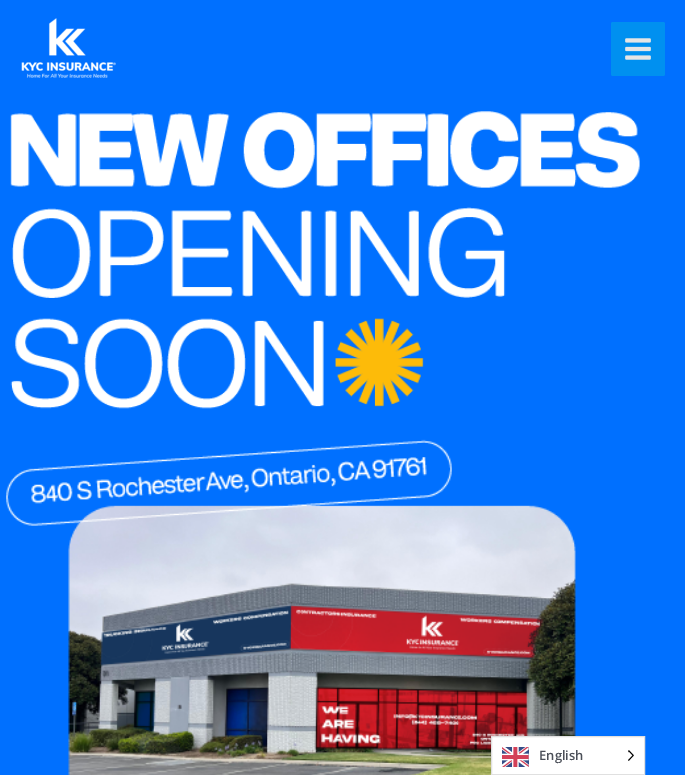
%!PS
<< /PageSize [685 775] >> setpagedevice
/rgb { dup -16 bitshift 255 div exch dup -8 bitshift 255 and 255 div exch 255 and 255 div setrgbcolor } def
/font { [ exch dup neg 0 0 3 -1 roll 0 0 ] selectfont } def
/text { moveto show } def
/roundrect { 5 dict begin { /r /h /w /y /x } { exch def } forall
  x r add y moveto x w add y 2 copy h add r arct x w add y h add x 1 index r arct
  x y h add x y r arct x y 2 copy exch w add exch r arct closepath end } def
/picture { 5 dict begin { /h /w /y /x /name } { exch def } forall
  gsave x y translate w h scale
  w h 8 [w 0 0 h 0 0] name (r) file false 3 colorimage grestore end } def
0 775 translate 1 -1 scale
4 setmiterlimit
/s1 { /OpenSans-SemiBold 13 font 16#4B4F58 rgb } def
16#0070FF rgb
0 0 685 775 rectfill
(pic1.raw) 21 18 95 60 picture
16#0090F0 rgb
611 22 54 54 2 roundrect fill
(pic2.raw) 625 38 26 22 picture
(pic3.raw) 10 111 630 298 picture
(pic4.raw) 6 439 570 336 picture
16#FFFFFF rgb
491.5 736.5 moveto 644.5 736.5 lineto 644.5 774.5 lineto 491.5 774.5 lineto closepath gsave fill grestore
16#E0E0E0 rgb
stroke
(pic5.raw) 502 747 27 20 picture
s1
(English) 539 760 text
(pic6.raw) 628 750 6 11 picture
showpage
